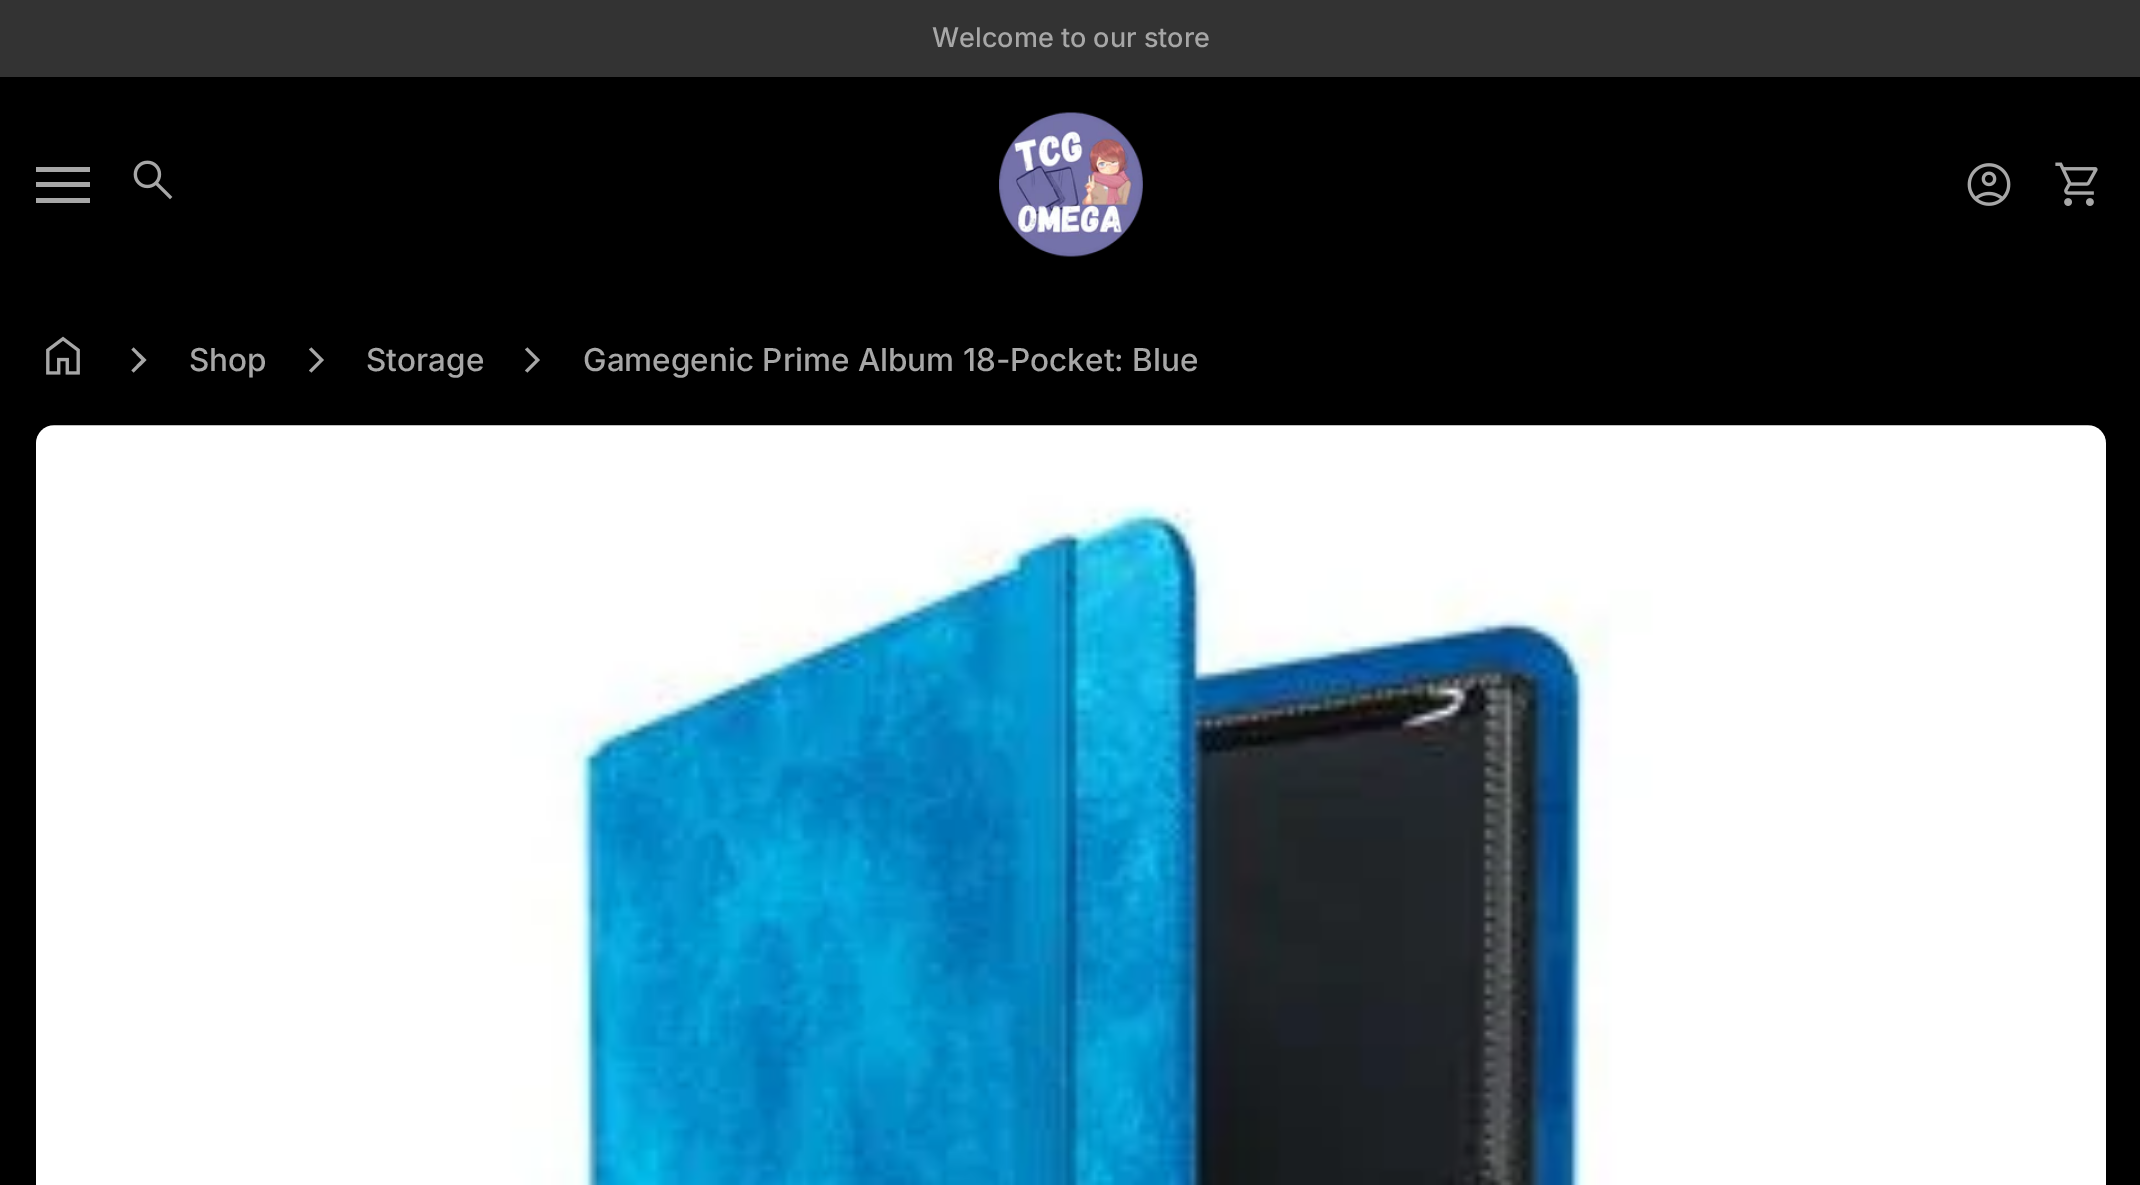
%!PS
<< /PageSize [2140 1185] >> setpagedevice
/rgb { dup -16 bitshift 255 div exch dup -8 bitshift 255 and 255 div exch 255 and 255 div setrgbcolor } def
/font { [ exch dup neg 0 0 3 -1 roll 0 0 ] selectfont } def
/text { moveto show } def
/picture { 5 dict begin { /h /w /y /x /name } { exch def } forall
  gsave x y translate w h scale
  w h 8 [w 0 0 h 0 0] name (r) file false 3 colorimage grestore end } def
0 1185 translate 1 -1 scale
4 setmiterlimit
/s1 { /Inter-Medium 27 font 16#A7A7A7 rgb } def
/s2 { /Inter-Medium 31.5 font 16#A7A7A7 rgb } def
16#000000 rgb
0 0 2140 1185 rectfill
16#333333 rgb
0 0 2140 77 rectfill
s1
(Welcome to our store) 932 47 text
36 167 54 5 rectfill
36 182 54 5 rectfill
36 198 54 5 rectfill
(pic1.raw) 133 160 40 40 picture
(pic2.raw) 999 112 144 145 picture
(pic3.raw) 1967 163 44 43 picture
(pic4.raw) 2055 162 43 44 picture
(pic5.raw) 46 336 34 39 picture
141.5 360 moveto 131.5 349.5 lineto 133.5 347.5 lineto 146.5 360 lineto 133.5 372.5 lineto 131.5 370.5 lineto closepath fill
s2
(Shop) 189 371 text
319.5 360 moveto 309 349.5 lineto 311.5 347.5 lineto 324 360 lineto 311.5 372.5 lineto 309 370.5 lineto closepath fill
(Storage) 366 371 text
535.5 360 moveto 525 349.5 lineto 527.5 347.5 lineto 540 360 lineto 527.5 372.5 lineto 525 370.5 lineto closepath fill
(Gamegenic Prime Album 18-Pocket: Blue) 583 371 text
(pic6.raw) 36 425 2070 760 picture
showpage
